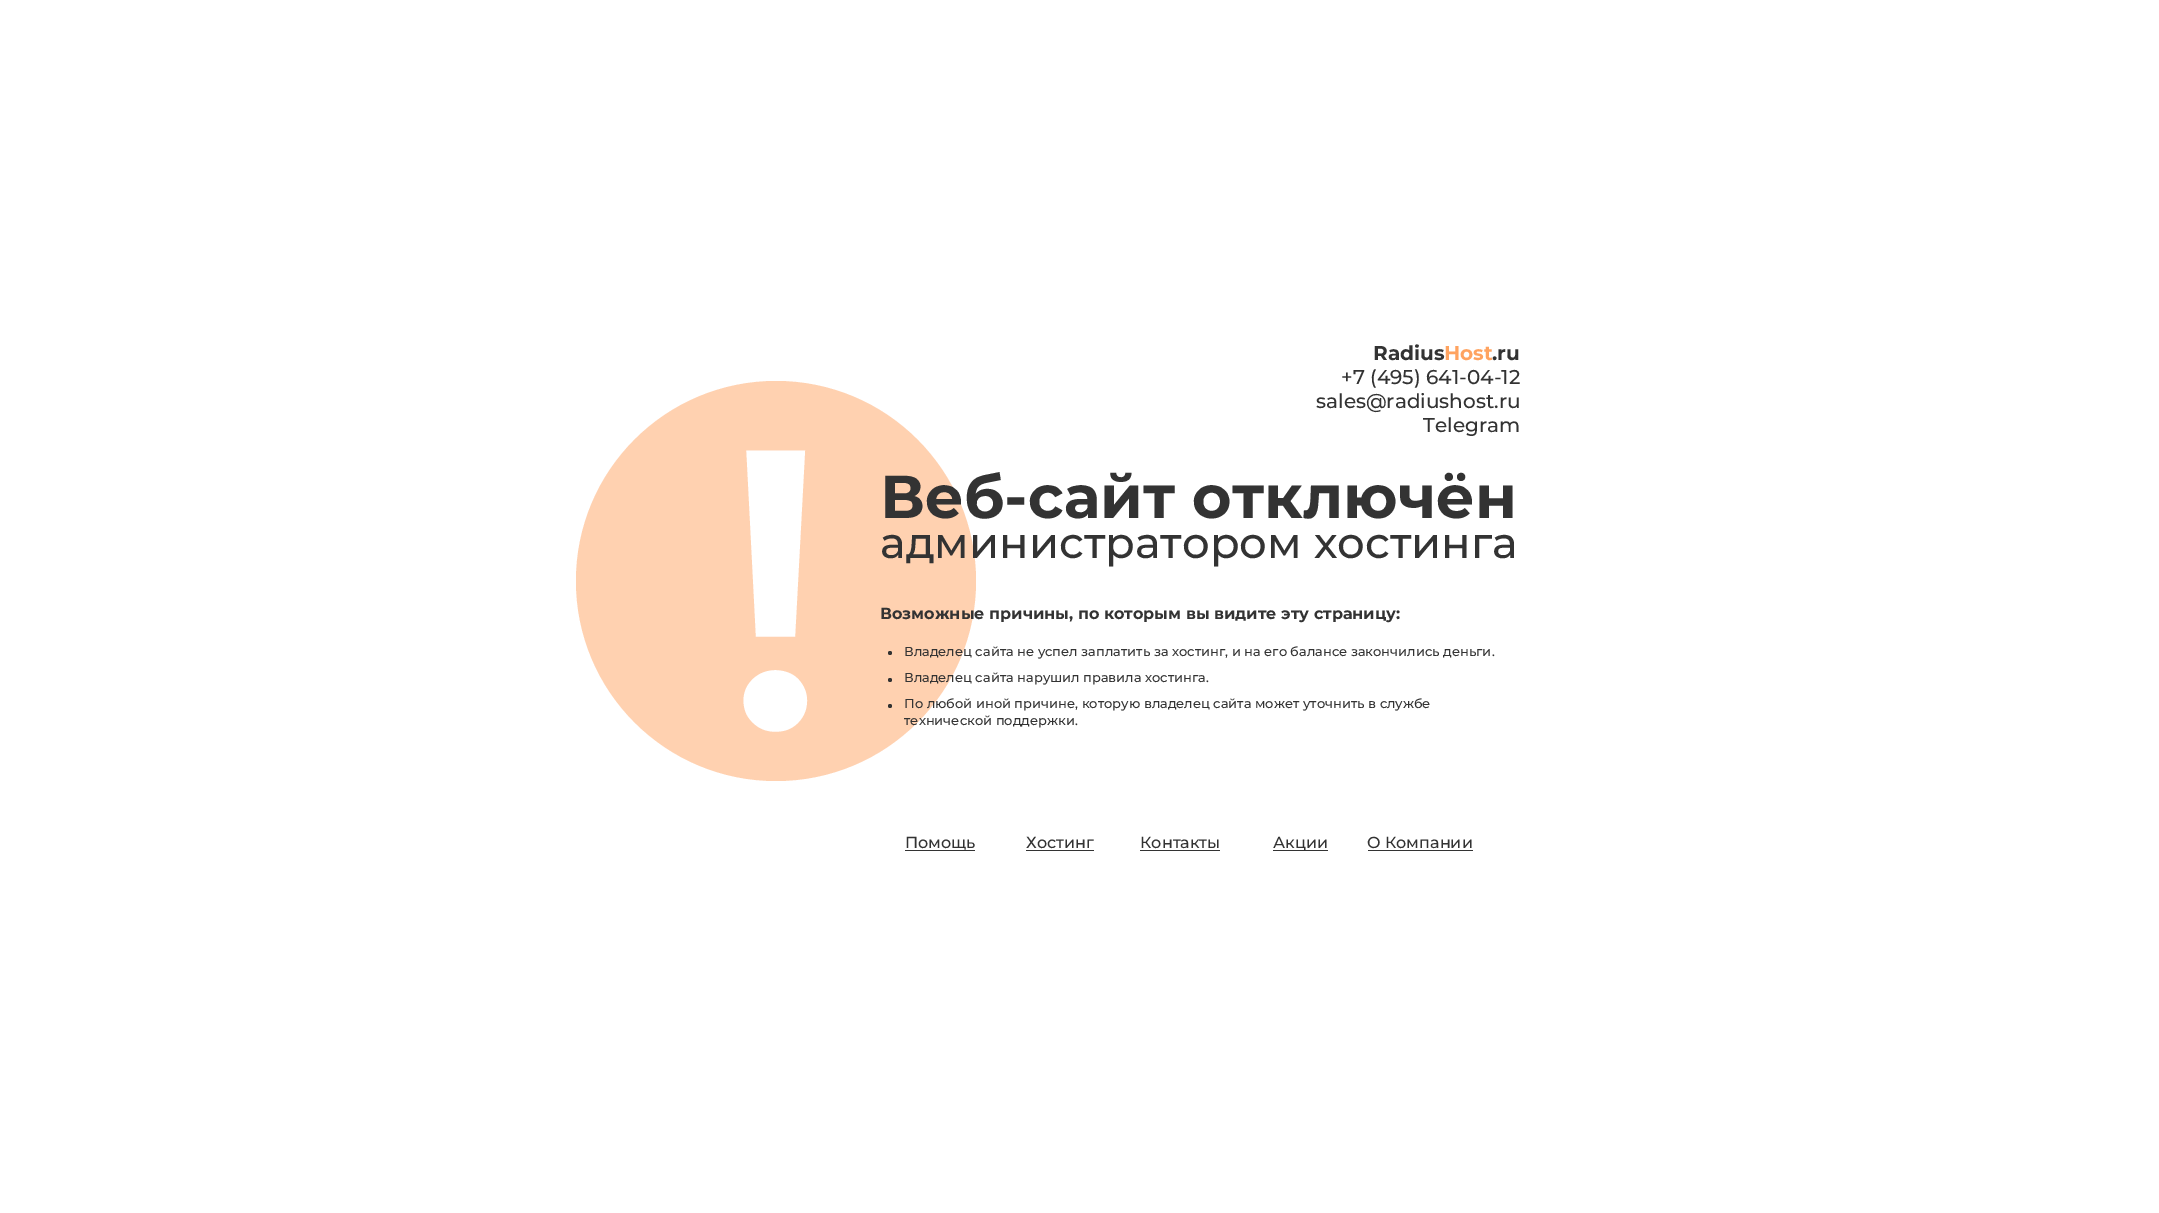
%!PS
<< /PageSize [2159 1213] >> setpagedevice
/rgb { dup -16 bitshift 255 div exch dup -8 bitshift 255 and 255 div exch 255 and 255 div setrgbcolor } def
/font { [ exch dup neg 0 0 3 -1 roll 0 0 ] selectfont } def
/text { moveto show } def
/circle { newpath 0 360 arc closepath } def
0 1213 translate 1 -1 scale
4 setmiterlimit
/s1 { /Montserrat-Bold 20 font 16#333333 rgb } def
/s2 { /Montserrat-Bold 20 font 16#FFA360 rgb } def
/s3 { /Montserrat-Medium 20 font 16#333333 rgb } def
/s4 { /Montserrat-SemiBold 400 font 16#FFFFFF rgb } def
/s5 { /Montserrat-Bold 60.4 font 16#333333 rgb } def
/s6 { /Montserrat-Medium 43.4 font 16#333333 rgb } def
/s7 { /Montserrat-Bold 16 font 16#333333 rgb } def
/s8 { /Montserrat-Medium 13 font 16#333333 rgb } def
/s9 { /Montserrat-Medium 16 font 16#333333 rgb } def
16#FFFFFF rgb
0 0 2159 1213 rectfill
s1
(Radius) 1373 360 text
s2
(Host) 1444 360 text
s1
(.ru) 1492 360 text
s3
(+7 \(495\) 641-04-12) 1341 384 text
(sales@radiushost.ru) 1316 408 text
(Telegram) 1423 432 text
16#FFD1B0 rgb
776 581 200 circle fill
s4
(!) 720 729 text
s5
(Веб-сайт отключён) 880 518 text
s6
(администратором хостинга) 880 558 text
s7
(Возможные причины, по которым вы видите эту страницу:) 880 619 text
890 653 2 circle fill
s8
(Владелец сайта не успел заплатить за хостинг, и на его балансе закончились деньги.) 904 656 text
890 680 2 circle fill
(Владелец сайта нарушил правила хостинга.) 904 682 text
890 706 2 circle fill
(По любой иной причине, которую владелец сайта может уточнить в службе) 904 708 text
(технической поддержки.) 904 725 text
s9
(Помощь) 905 848 text
905 850 70 1 rectfill
(Хостинг) 1026 848 text
1026 850 68 1 rectfill
(Контакты) 1140 848 text
1140 850 80 1 rectfill
(Акции) 1273 848 text
1273 850 55 1 rectfill
(О Компании) 1367 848 text
1368 850 105 1 rectfill
showpage
